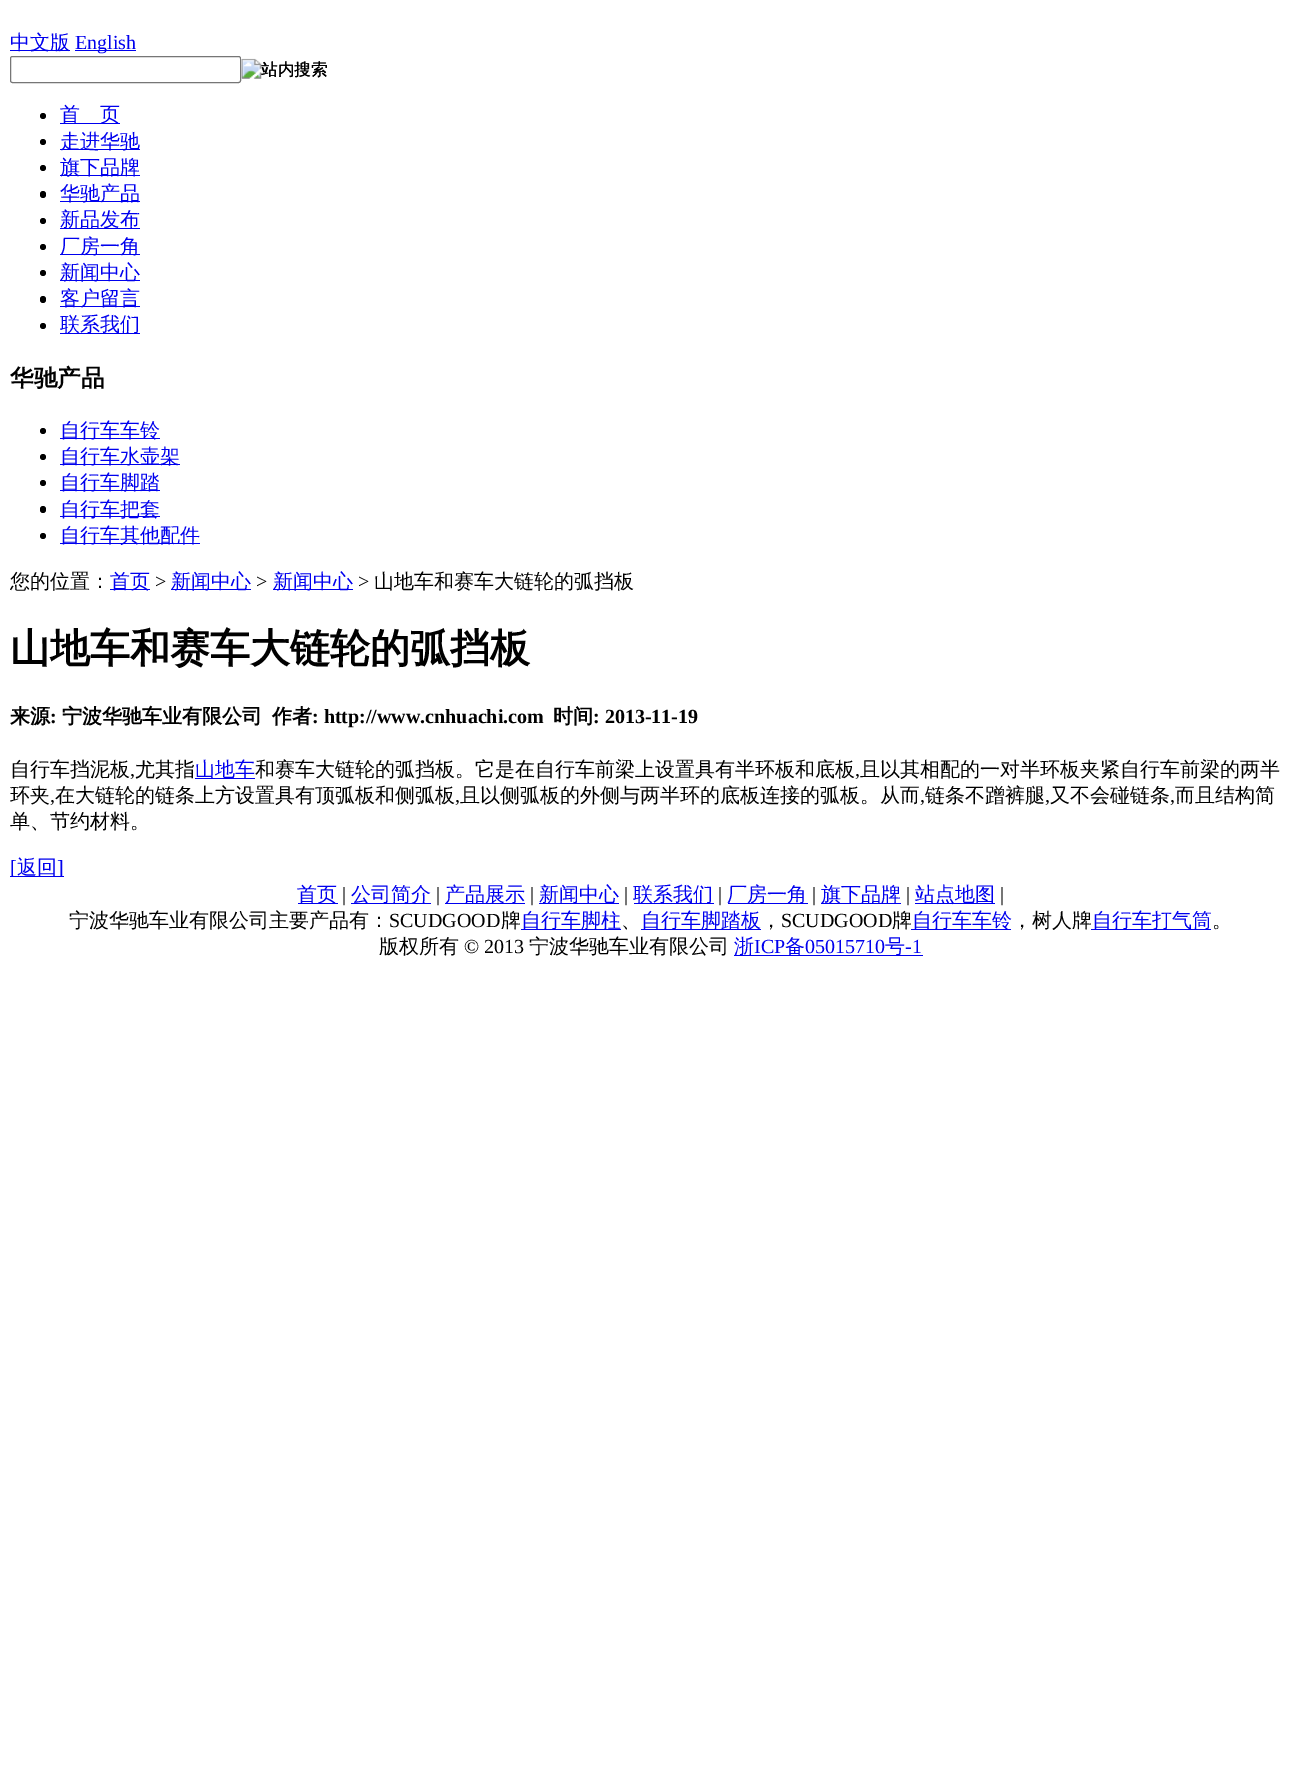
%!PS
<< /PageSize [1301 1786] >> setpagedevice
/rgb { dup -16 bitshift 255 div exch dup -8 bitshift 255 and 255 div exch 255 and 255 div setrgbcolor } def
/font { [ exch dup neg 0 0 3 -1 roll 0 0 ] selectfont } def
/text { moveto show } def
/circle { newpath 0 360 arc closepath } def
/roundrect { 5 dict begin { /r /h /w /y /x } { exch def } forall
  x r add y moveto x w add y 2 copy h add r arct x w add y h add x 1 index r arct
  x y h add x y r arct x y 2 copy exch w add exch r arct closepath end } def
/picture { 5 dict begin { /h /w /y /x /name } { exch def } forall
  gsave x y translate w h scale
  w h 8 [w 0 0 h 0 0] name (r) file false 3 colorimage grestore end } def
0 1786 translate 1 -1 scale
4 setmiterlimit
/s1 { /WenQuanYiZenHei-Medium 20 font 16#0000EE rgb } def
/s2 { /LiberationSerif-Regular 20 font 16#0000EE rgb } def
/s3 { /WenQuanYiZenHei-Medium 16.5 font 16#000000 rgb } def
/s4 { /WenQuanYiZenHei-Bold 23.5 font 16#000000 rgb } def
/s5 { /WenQuanYiZenHei-Medium 20 font 16#000000 rgb } def
/s6 { /LiberationSerif-Regular 20 font 16#000000 rgb } def
/s7 { /WenQuanYiZenHei-Bold 40 font 16#000000 rgb } def
/s8 { /WenQuanYiZenHei-Bold 20 font 16#000000 rgb } def
/s9 { /LiberationSerif-Bold 20 font 16#000000 rgb } def
16#FFFFFF rgb
0 0 1301 1786 rectfill
16#0000EE rgb
10 50 60 1 rectfill
s1
(中文版) 10 49 text
75 50 61 1 rectfill
s2
(English) 75 49 text
16#767676 rgb
10.5 56.5 230 26 2 roundrect stroke
(pic1.raw) 241 58 86 21 picture
s3
(站内搜索) 261 75 text
43 116 3 circle fill
16#0000EE rgb
60 123 60 1 rectfill
s1
(首　页) 60 121 text
16#000000 rgb
43 142 3 circle fill
16#0000EE rgb
60 149 80 1 rectfill
(走进华驰) 60 148 text
16#000000 rgb
43 168 3 circle fill
16#0000EE rgb
60 175 80 1 rectfill
(旗下品牌) 60 174 text
16#000000 rgb
40 191 6 7 3 roundrect fill
16#0000EE rgb
60 201 80 1 rectfill
(华驰产品) 60 200 text
16#000000 rgb
43 221 3 circle fill
16#0000EE rgb
60 228 80 1 rectfill
(新品发布) 60 226 text
16#000000 rgb
43 247 3 circle fill
16#0000EE rgb
60 254 80 1 rectfill
(厂房一角) 60 253 text
16#000000 rgb
43 273 3 circle fill
16#0000EE rgb
60 280 80 1 rectfill
(新闻中心) 60 279 text
16#000000 rgb
40 296 6 7 3 roundrect fill
16#0000EE rgb
60 306 80 1 rectfill
(客户留言) 60 305 text
16#000000 rgb
43 326 3 circle fill
16#0000EE rgb
60 333 80 1 rectfill
(联系我们) 60 331 text
s4
(华驰产品) 10 386 text
43 431 3 circle fill
16#0000EE rgb
60 438 100 1 rectfill
s1
(自行车车铃) 60 437 text
16#000000 rgb
43 457 3 circle fill
16#0000EE rgb
60 464 120 1 rectfill
(自行车水壶架) 60 463 text
16#000000 rgb
43 483 3 circle fill
16#0000EE rgb
60 490 100 1 rectfill
(自行车脚踏) 60 489 text
16#000000 rgb
40 506 6 7 3 roundrect fill
16#0000EE rgb
60 516 100 1 rectfill
(自行车把套) 60 516 text
16#000000 rgb
43 536 3 circle fill
16#0000EE rgb
60 543 140 1 rectfill
(自行车其他配件) 60 542 text
s5
(您的位置：) 10 588 text
16#0000EE rgb
110 589 40 1 rectfill
(首页) 110 588 text
s6
(>) 155 588 text
16#0000EE rgb
171 589 80 1 rectfill
s1
(新闻中心) 171 588 text
s6
(>) 256 588 text
16#0000EE rgb
273 589 80 1 rectfill
s1
(新闻中心) 273 588 text
s6
(>) 358 588 text
s5
(山地车和赛车大链轮的弧挡板) 374 588 text
s7
(山地车和赛车大链轮的弧挡板) 10 662 text
s8
(来源) 10 723 text
s9
(:) 50 723 text
s8
(宁波华驰车业有限公司) 62 723 text
(作者) 272 723 text
s9
(: http://www.cnhuachi.com) 312 723 text
s8
(时间) 553 723 text
s9
(: 2013-11-19) 593 723 text
s5
(自行车挡泥板) 10 776 text
s6
(,) 130 776 text
s5
(尤其指) 135 776 text
16#0000EE rgb
195 778 60 1 rectfill
(山地车) 195 776 text
s5
(和赛车大链轮的弧挡板。它是在自行车前梁上设置具有半环板和底板) 255 776 text
s6
(,) 855 776 text
s5
(且以其相配的一对半环板夹紧自行车前梁的两半) 860 776 text
(环夹) 10 802 text
s6
(,) 50 802 text
s5
(在大链轮的链条上方设置具有顶弧板和侧弧板) 55 802 text
s6
(,) 455 802 text
s5
(且以侧弧板的外侧与两半环的底板连接的弧板。从而) 460 802 text
s6
(,) 920 802 text
s5
(链条不蹭裤腿) 925 802 text
s6
(,) 1045 802 text
s5
(又不会碰链条) 1050 802 text
s6
(,) 1170 802 text
s5
(而且结构简) 1175 802 text
(单、节约材料。) 10 828 text
16#0000EE rgb
10 876 54 1 rectfill
s2
([) 10 874 text
s1
(返回) 17 874 text
s2
(]) 57 874 text
298 903 40 1 rectfill
s1
(首页) 297 901 text
s6
(|) 342 901 text
16#0000EE rgb
351 903 80 1 rectfill
s1
(公司简介) 351 901 text
s6
(|) 436 901 text
16#0000EE rgb
445 903 80 1 rectfill
s1
(产品展示) 445 901 text
s6
(|) 530 901 text
16#0000EE rgb
539 903 80 1 rectfill
s1
(新闻中心) 539 901 text
s6
(|) 624 901 text
16#0000EE rgb
634 903 80 1 rectfill
s1
(联系我们) 633 901 text
s6
(|) 718 901 text
16#0000EE rgb
728 903 80 1 rectfill
s1
(厂房一角) 727 901 text
s6
(|) 812 901 text
16#0000EE rgb
821 903 80 1 rectfill
s1
(旗下品牌) 821 901 text
s6
(|) 906 901 text
16#0000EE rgb
915 903 80 1 rectfill
s1
(站点地图) 915 901 text
s6
(|) 1000 901 text
s5
(宁波华驰车业有限公司主要产品有：) 69 927 text
s6
(SCUDGOOD) 389 927 text
s5
(牌) 501 927 text
16#0000EE rgb
521 929 100 1 rectfill
(自行车脚柱) 521 927 text
s5
(、) 621 927 text
16#0000EE rgb
641 929 120 1 rectfill
(自行车脚踏板) 641 927 text
s5
(，) 761 927 text
s6
(SCUDGOOD) 781 927 text
s5
(牌) 892 927 text
16#0000EE rgb
911 929 100 1 rectfill
(自行车车铃) 912 927 text
s5
(，树人牌) 1012 927 text
16#0000EE rgb
1091 929 120 1 rectfill
(自行车打气筒) 1092 927 text
s5
(。) 1212 927 text
(版权所有) 379 953 text
s6
(© 2013) 464 953 text
s5
(宁波华驰车业有限公司) 529 953 text
16#0000EE rgb
734 955 189 1 rectfill
(浙) 734 953 text
s2
(ICP) 754 953 text
s1
(备) 785 953 text
s2
(05015710) 805 953 text
s1
(号) 885 953 text
s2
(-1) 905 953 text
showpage
